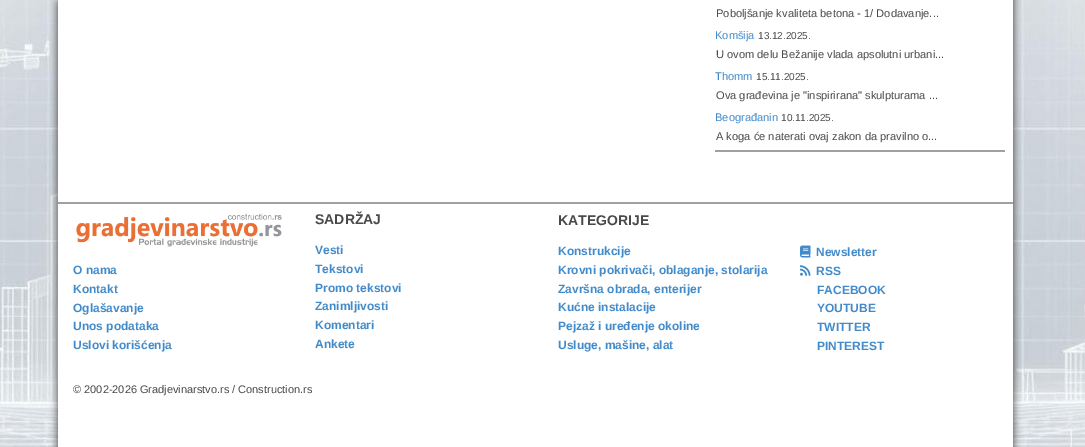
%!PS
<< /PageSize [1085 447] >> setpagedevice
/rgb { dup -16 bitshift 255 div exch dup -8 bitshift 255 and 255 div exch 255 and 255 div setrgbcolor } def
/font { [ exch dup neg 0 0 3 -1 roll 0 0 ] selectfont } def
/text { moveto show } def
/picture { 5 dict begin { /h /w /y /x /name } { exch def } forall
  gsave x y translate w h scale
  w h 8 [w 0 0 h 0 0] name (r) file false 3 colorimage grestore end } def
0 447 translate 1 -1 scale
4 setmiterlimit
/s1 { /LiberationSans-Regular 11.1 font 16#494949 rgb } def
/s2 { /LiberationSans-Regular 11.1 font 16#428BCA rgb } def
/s3 { /LiberationSans-Regular 10 font 16#494949 rgb } def
/s4 { /LiberationSans-Bold 12 font 16#428BCA rgb } def
/s5 { /LiberationSans-Bold 14 font 16#494949 rgb } def
/s6 { /LiberationSans-Regular 11 font 16#494949 rgb } def
16#FFFFFF rgb
0 0 1085 447 rectfill
(pic1.raw) 0 0 58 447 picture
s1
(Poboljšanje kvaliteta betona - 1/ Dodavanje...) 716 17 text
s2
(Komšija) 715 39 text
s3
(13.12.2025.) 758 39 text
s1
(U ovom delu Bežanije vlada apsolutni urbani...) 716 58 text
s2
(Thomm) 715 80 text
s3
(15.11.2025.) 756 80 text
s1
(Ova građevina je "inspirirana" skulpturama ...) 716 99 text
s2
(Beograđanin) 715 121 text
s3
(10.11.2025.) 781 121 text
s1
(A koga će naterati ovaj zakon da pravilno o...) 716 140 text
16#A0A0A0 rgb
715 150 290 2 rectfill
58 202 955 2 rectfill
(pic2.raw) 76 213 206 34 picture
s4
(O nama) 73 274 text
(Kontakt) 73 293 text
(Oglašavanje) 73 312 text
(Unos podataka) 73 330 text
(Uslovi korišćenja) 73 349 text
s5
(SADRŽAJ) 315 224 text
s4
(Vesti) 315 254 text
(Tekstovi) 315 273 text
(Promo tekstovi) 315 292 text
(Zanimljivosti) 315 310 text
(Komentari) 315 329 text
(Ankete) 315 348 text
s5
(KATEGORIJE) 558 225 text
s4
(Konstrukcije) 558 255 text
(Krovni pokrivači, oblaganje, stolarija) 558 274 text
(Završna obrada, enterijer) 558 293 text
(Kućne instalacije) 558 311 text
(Pejzaž i uređenje okoline) 558 330 text
(Usluge, mašine, alat) 558 349 text
(pic3.raw) 800 245 11 13 picture
(Newsletter) 816 256 text
(pic4.raw) 800 265 11 11 picture
(RSS) 816 275 text
(FACEBOOK) 817 294 text
(YOUTUBE) 817 312 text
(TWITTER) 817 331 text
(PINTEREST) 817 350 text
s6
(© 2002-2026 Gradjevinarstvo.rs / Construction.rs) 73 393 text
(pic5.raw) 1013 0 72 447 picture
showpage
